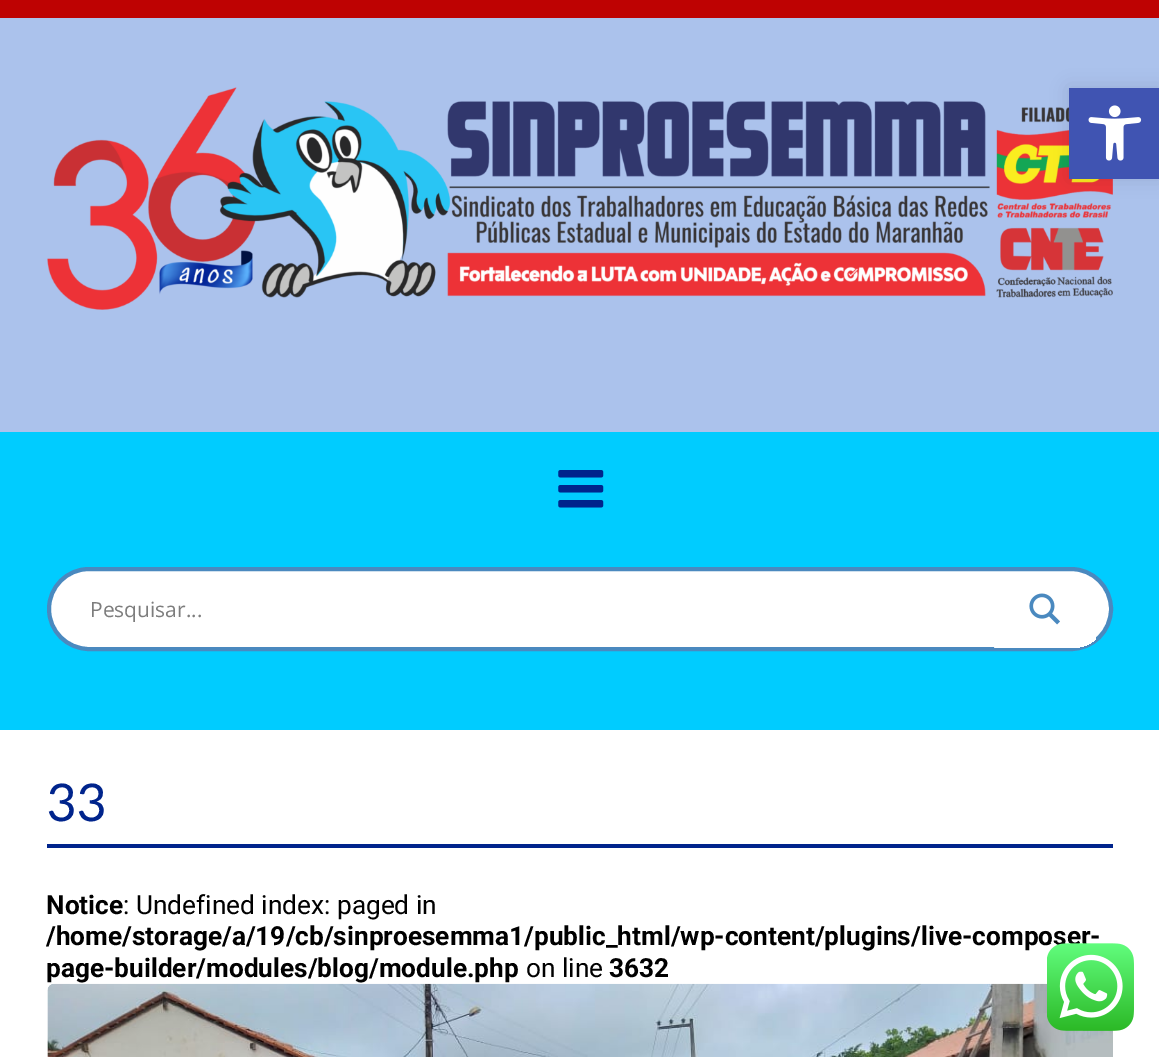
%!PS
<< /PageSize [1159 1057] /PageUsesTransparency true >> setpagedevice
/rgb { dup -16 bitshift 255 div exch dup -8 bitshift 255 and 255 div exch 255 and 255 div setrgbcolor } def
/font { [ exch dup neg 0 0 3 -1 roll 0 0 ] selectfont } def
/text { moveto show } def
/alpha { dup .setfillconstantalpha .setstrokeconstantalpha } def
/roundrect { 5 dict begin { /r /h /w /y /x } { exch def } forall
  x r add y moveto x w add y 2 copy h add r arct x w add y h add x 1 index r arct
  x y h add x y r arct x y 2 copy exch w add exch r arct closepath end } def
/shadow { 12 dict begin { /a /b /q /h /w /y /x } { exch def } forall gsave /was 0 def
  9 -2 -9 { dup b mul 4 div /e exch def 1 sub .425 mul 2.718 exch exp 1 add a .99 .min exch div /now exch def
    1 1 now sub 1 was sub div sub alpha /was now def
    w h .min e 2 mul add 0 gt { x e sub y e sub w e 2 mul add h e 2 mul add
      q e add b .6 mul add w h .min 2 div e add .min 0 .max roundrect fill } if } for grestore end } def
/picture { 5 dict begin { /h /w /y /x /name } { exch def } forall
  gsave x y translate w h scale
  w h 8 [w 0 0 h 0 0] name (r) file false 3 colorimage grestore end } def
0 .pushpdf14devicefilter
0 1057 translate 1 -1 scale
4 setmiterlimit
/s1 { /OpenSans-Regular 21 font 16#7D7D7D rgb } def
/s2 { /Lato-Regular 52 font 16#00248C rgb } def
/s3 { /Roboto-Bold 26.25 font 16#000000 rgb } def
/s4 { /Roboto-Regular 26.25 font 16#000000 rgb } def
16#FFFFFF rgb
0 0 1159 1057 rectfill
16#ABC2EC rgb
0 18 1159 414 rectfill
(pic2.raw) 47 87 1066 223 picture
16#000000 rgb
1069 88 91 91 0 9 0.1 shadow
16#4054B2 rgb
1069 88 90 91 rectfill
(pic1.raw) 1088 105 54 56 picture
16#BE0202 rgb
0 0 1159 18 rectfill
16#00CCFF rgb
0 432 1159 298 rectfill
(pic3.raw) 558 470 46 38 picture
16#FFFFFF rgb
49 569 1062 80 40 roundrect gsave fill grestore
16#4A89BF rgb
4 setlinewidth
stroke
s1
(Pesquisar...) 90 617 text
gsave
51 571 1059 77 38.5 roundrect clip newpath
16#FFFFFF rgb
994 585 102 66 5 roundrect fill
grestore
0.64 alpha
16#FFFFFF rgb
998 586 moveto 1088 586 lineto 1091 586 1094 589 1094 592 curveto 1094 641 lineto 1096 639 lineto 1096 590 lineto 1096 587 1094 585 1091 585 curveto 999 585 lineto 997 585 996 586 995 587 curveto closepath fill
1 alpha
(pic4.raw) 1029 593 31 32 picture
s2
(33) 46 821 text
47 844 1066 4 rectfill
s3
(Notice) 46 914 text
s4
(: Undefined index: paged in) 123 914 text
s3
(/home/storage/a/19/cb/sinproesemma1/public_html/wp-content/plugins/live-composer-) 46 945 text
(page-builder/modules/blog/module.php) 46 977 text
s4
(on line) 526 977 text
s3
(3632) 609 977 text
(pic5.raw) 47 983 1066 74 picture
(pic6.raw) 1047 943 87 88 picture
.poppdf14devicefilter showpage
